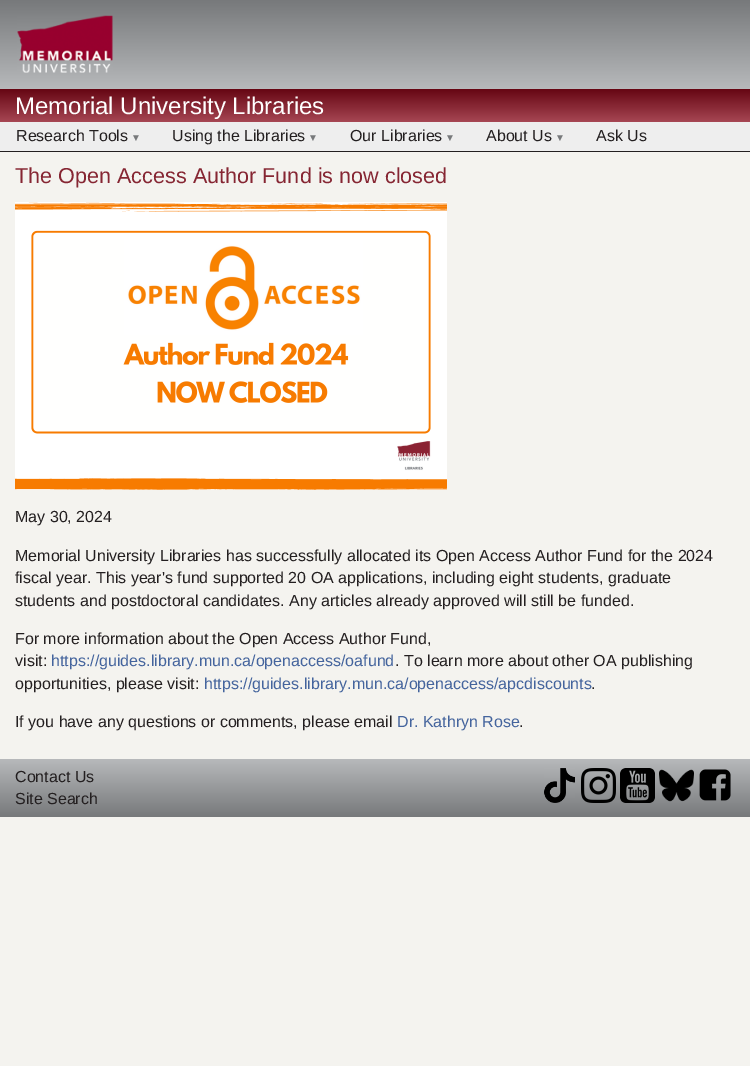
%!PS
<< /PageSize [750 1066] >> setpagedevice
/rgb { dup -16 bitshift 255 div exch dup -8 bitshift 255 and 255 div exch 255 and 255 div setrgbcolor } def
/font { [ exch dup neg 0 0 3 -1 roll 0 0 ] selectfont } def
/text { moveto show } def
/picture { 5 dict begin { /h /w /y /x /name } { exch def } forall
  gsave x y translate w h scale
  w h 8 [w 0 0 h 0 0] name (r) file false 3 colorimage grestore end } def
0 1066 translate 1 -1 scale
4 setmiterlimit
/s1 { /LiberationSans-Regular 24 font 16#FFFFFF rgb } def
/s2 { /LiberationSans-Regular 16 font 16#231F20 rgb } def
/s3 { /LiberationSans-Regular 10 font 16#77797B rgb } def
/s4 { /LiberationSans-Regular 21.6 font 16#862633 rgb } def
/s5 { /LiberationSans-Regular 16 font 16#44649D rgb } def
16#F4F3EF rgb
0 0 750 1066 rectfill
gsave 0 0 moveto 750 0 lineto 750 89 lineto 0 89 lineto closepath clip newpath
<< /ShadingType 2 /ColorSpace /DeviceRGB /Coords [375 0 375 89] /Extend [true true] /Function << /FunctionType 2 /Domain [0 1] /C0 [0.467 0.475 0.482] /C1 [0.718 0.725 0.733] /N 1 >> >> shfill grestore
(pic1.raw) 17 15 96 58 picture
gsave 0 89 moveto 750 89 lineto 750 122 lineto 0 122 lineto closepath clip newpath
<< /ShadingType 2 /ColorSpace /DeviceRGB /Coords [375 89 375 122] /Extend [true true] /Function << /FunctionType 2 /Domain [0 1] /C0 [0.4 0.024 0.075] /C1 [0.651 0.275 0.325] /N 1 >> >> shfill grestore
s1
(Memorial University Libraries) 15 114 text
16#EEEEEE rgb
0 122 750 29 rectfill
16#231F20 rgb
0 151 750 1 rectfill
s2
(Research Tools) 16 141 text
s3
(▼) 131 141 text
s2
(Using the Libraries) 172 141 text
s3
(▼) 308 141 text
s2
(Our Libraries) 350 141 text
s3
(▼) 445 141 text
s2
(About Us) 486 141 text
s3
(▼) 555 141 text
s2
(Ask Us) 596 141 text
s4
(The Open Access Author Fund is now closed) 15 183 text
(pic2.raw) 15 202 432 288 picture
s2
(May 30, 2024) 15 522 text
(Memorial University Libraries has successfully allocated its Open Access Author Fund for the 2024) 15 561 text
(fiscal year. This year's fund supported 20 OA applications, including eight students, graduate) 15 583 text
(students and postdoctoral candidates. Any articles already approved will still be funded.) 15 606 text
(For more information about the Open Access Author Fund,) 15 644 text
(visit:) 15 666 text
s5
(https://guides.library.mun.ca/openaccess/oafund) 51 666 text
s2
(. To learn more about other OA publishing) 395 666 text
(opportunities, please visit:) 15 689 text
s5
(https://guides.library.mun.ca/openaccess/apcdiscounts) 204 689 text
s2
(.) 591 689 text
(If you have any questions or comments, please email) 15 727 text
s5
(Dr. Kathryn Rose) 397 727 text
s2
(.) 519 727 text
gsave 0 759 moveto 750 759 lineto 750 817 lineto 0 817 lineto closepath clip newpath
<< /ShadingType 2 /ColorSpace /DeviceRGB /Coords [375 759 375 817] /Extend [true true] /Function << /FunctionType 2 /Domain [0 1] /C0 [0.718 0.725 0.733] /C1 [0.467 0.475 0.482] /N 1 >> >> shfill grestore
(Contact Us) 15 782 text
(Site Search) 15 804 text
(pic3.raw) 544 768 31 35 picture
(pic4.raw) 581 768 35 35 picture
(pic5.raw) 620 768 35 35 picture
(pic6.raw) 659 769 35 33 picture
(pic7.raw) 699 769 32 32 picture
showpage
